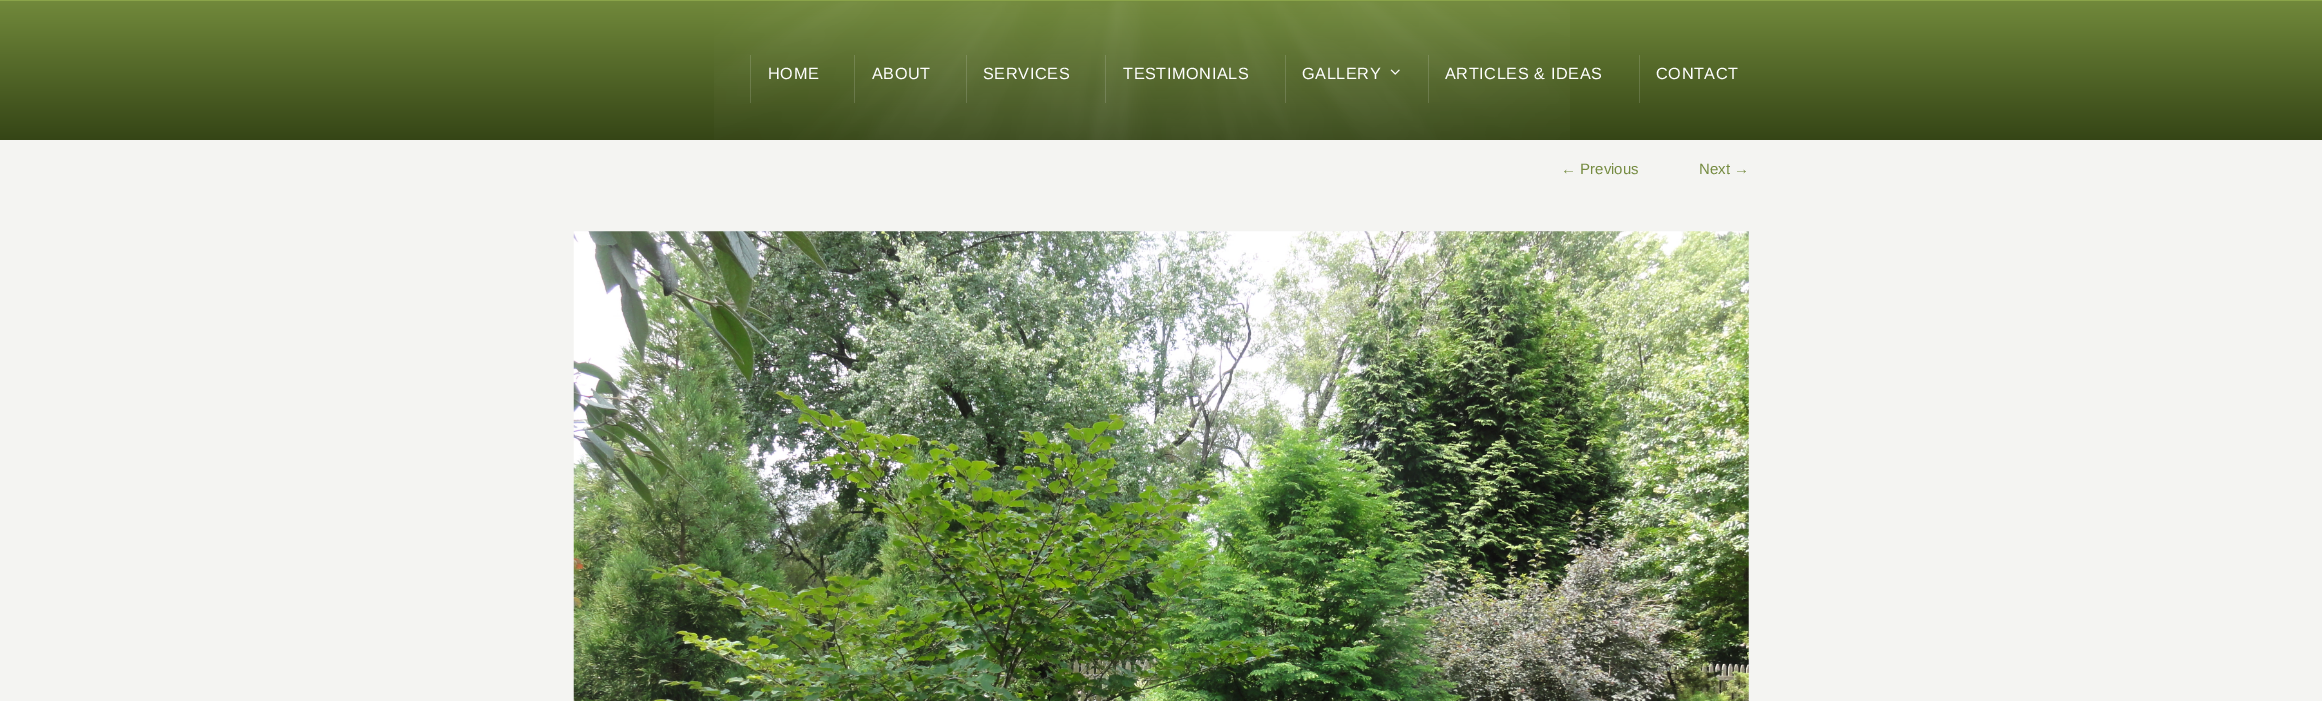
%!PS
<< /PageSize [2322 701] /PageUsesTransparency true >> setpagedevice
/rgb { dup -16 bitshift 255 div exch dup -8 bitshift 255 and 255 div exch 255 and 255 div setrgbcolor } def
/font { [ exch dup neg 0 0 3 -1 roll 0 0 ] selectfont } def
/text { moveto show } def
/alpha { dup .setfillconstantalpha .setstrokeconstantalpha } def
/picture { 5 dict begin { /h /w /y /x /name } { exch def } forall
  gsave x y translate w h scale
  w h 8 [w 0 0 h 0 0] name (r) file false 3 colorimage grestore end } def
0 .pushpdf14devicefilter
0 701 translate 1 -1 scale
4 setmiterlimit
/s1 { /LiberationSans-Regular 15 font 16#758B41 rgb } def
16#F4F4F2 rgb
0 0 2322 701 rectfill
gsave 0 1 moveto 2322 1 lineto 2322 140 lineto 0 140 lineto closepath clip newpath
<< /ShadingType 2 /ColorSpace /DeviceRGB /Coords [1161 1.2 1161 140] /Extend [true true] /Function << /FunctionType 2 /Domain [0 1] /C0 [0.443 0.537 0.231] /C1 [0.208 0.271 0.086] /N 1 >> >> shfill grestore
gsave 1639 55 moveto 1640 55 lineto 1640 103 lineto 1639 103 lineto closepath clip newpath
<< /ShadingType 2 /ColorSpace /DeviceRGB /Coords [1161 1.2 1161 140] /Extend [true true] /Function << /FunctionType 2 /Domain [0 1] /C0 [0.525 0.608 0.345] /C1 [0.325 0.38 0.224] /N 1 >> >> shfill grestore
16#8AA449 rgb
0 0 2322 1 rectfill
(pic1.raw) 714 1 856 139 picture
0.15 alpha
16#FFFFFF rgb
750 55 1 48 rectfill
/LiberationSans-Regular 16.25 font
1 alpha
768 79 moveto 0.6 0 (HOME) ashow
0.15 alpha
854 55 1 48 rectfill
1 alpha
872 79 moveto 0.6 0 (ABOUT) ashow
0.15 alpha
966 55 1 48 rectfill
1 alpha
983 79 moveto 0.6 0 (SERVICES) ashow
0.15 alpha
1105 55 1 48 rectfill
1 alpha
1123 79 moveto 0.6 0 (TESTIMONIALS) ashow
0.15 alpha
1285 55 1 48 rectfill
1 alpha
1302 79 moveto 0.6 0 (GALLERY) ashow
(pic2.raw) 1390 69 10 6 picture
0.15 alpha
1428 55 1 48 rectfill
1 alpha
1445 79 moveto 0.6 0 (ARTICLES & IDEAS) ashow
1656 79 moveto 0.6 0 (CONTACT) ashow
s1
(← Previous) 1561 174 text
(Next →) 1699 174 text
(pic3.raw) 573 231 1176 470 picture
.poppdf14devicefilter showpage
